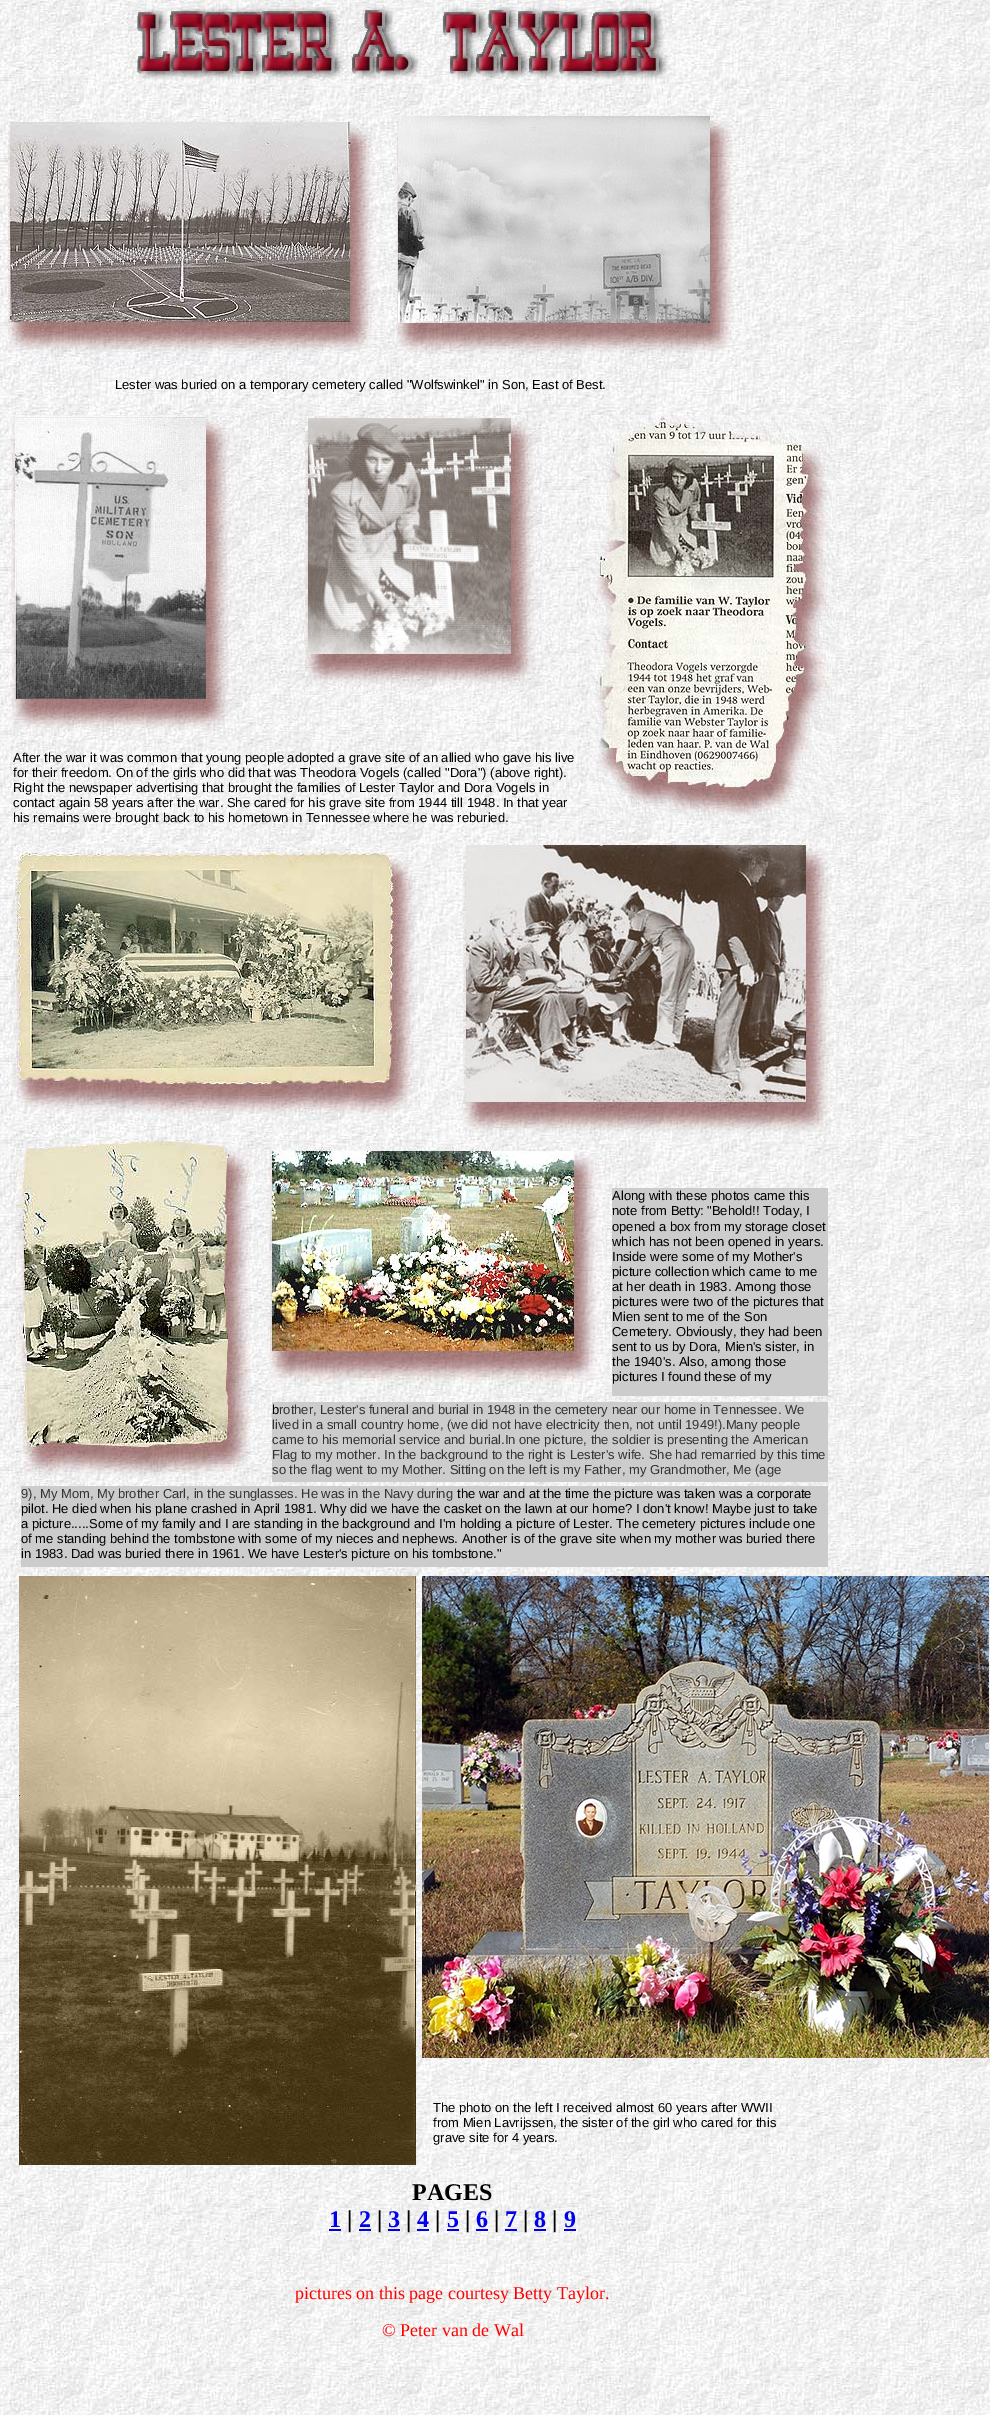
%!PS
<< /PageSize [990 2415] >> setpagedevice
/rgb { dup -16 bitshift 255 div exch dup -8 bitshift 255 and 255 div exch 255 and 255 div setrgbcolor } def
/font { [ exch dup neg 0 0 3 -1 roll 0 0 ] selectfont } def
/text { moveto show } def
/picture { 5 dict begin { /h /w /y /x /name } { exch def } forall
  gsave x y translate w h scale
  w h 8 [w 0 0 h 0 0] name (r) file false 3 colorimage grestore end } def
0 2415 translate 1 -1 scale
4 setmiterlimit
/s1 { /LiberationSans-Regular 13 font 16#000000 rgb } def
/s2 { /LiberationSans-Regular 13 font 16#333333 rgb } def
/s3 { /LiberationSerif-Bold 24 font 16#000000 rgb } def
/s4 { /LiberationSerif-Bold 24 font 16#0000EE rgb } def
/s5 { /LiberationSerif-Regular 18 font 16#FF0000 rgb } def
16#FFFFFF rgb
0 0 990 2415 rectfill
(pic1.raw) 0 0 990 2415 picture
(pic2.raw) 128 3 544 81 picture
(pic3.raw) 8 119 372 246 picture
(pic4.raw) 397 115 349 254 picture
s1
(Lester was buried on a temporary cemetery called "Wolfswinkel" in Son, East of Best.) 115 389 text
(pic5.raw) 12 415 230 325 picture
(pic6.raw) 590 415 246 405 picture
(pic7.raw) 305 416 237 279 picture
(After the war it was common that young people adopted a grave site of an allied who gave his live) 13 762 text
(for their freedom. On of the girls who did that was Theodora Vogels \(called "Dora"\) \(above right\).) 13 777 text
(Right the newspaper advertising that brought the families of Lester Taylor and Dora Vogels in) 13 792 text
(contact again 58 years after the war. She cared for his grave site from 1944 till 1948. In that year) 13 807 text
(his remains were brought back to his hometown in Tennessee where he was reburied.) 13 822 text
(pic8.raw) 13 847 407 276 picture
(pic9.raw) 463 843 373 299 picture
(pic10.raw) 16 1137 246 345 picture
(pic11.raw) 270 1147 335 249 picture
16#CCCCCC rgb
612 1188 216 208 rectfill
s1
(Along with these photos came this) 612 1200 text
(note from Betty:) 612 1215 text
("Behold!! Today, I) 707 1215 text
(opened a box from my storage closet) 612 1231 text
(which has not been opened in years.) 612 1246 text
(Inside were some of my Mother's) 612 1261 text
(picture collection which came to me) 612 1276 text
(at her death in 1983. Among those) 612 1291 text
(pictures were two of the pictures that) 612 1306 text
(Mien sent to me of the Son) 612 1321 text
(Cemetery. Obviously, they had been) 612 1336 text
(sent to us by Dora, Mien's sister, in) 612 1351 text
(the 1940's. Also, among those) 612 1366 text
(pictures I found these of my) 612 1381 text
16#CCCCCC rgb
272 1402 556 80 rectfill
s1
(b) 272 1414 text
s2
(rother, Lester's funeral and burial in 1948 in the cemetery near our home in Tennessee. We) 279 1414 text
(lived in a small country home, \(we did not have electricity then, not until 1949!\).Many people) 272 1429 text
(came to his memorial service and burial.In one picture, the soldier is presenting the American) 272 1444 text
(Flag to my mother. In the background to the right is Lester's wife. She had remarried by this time) 272 1459 text
(so the flag went to my Mother. Sitting on the left is my Father, my Grandmother, Me \(age) 272 1474 text
16#CCCCCC rgb
21 1486 807 81 rectfill
s2
(9\), My Mom, My brother Carl, in the sunglasses. He was in the Navy during) 21 1498 text
s1
(the war and at the time the picture was taken was a corporate) 457 1498 text
(pilot. He died when his plane crashed in April 1981. Why did we have the casket on the lawn at our home? I don't know! Maybe just to take) 21 1513 text
(a picture.....Some of my family and I are standing in the background and I'm holding a picture of Lester. The cemetery pictures include one) 21 1528 text
(of me standing behind the tombstone with some of my nieces and nephews. Another is of the grave site when my mother was buried there) 21 1543 text
(in 1983. Dad was buried there in 1961. We have Lester's picture on his tombstone.") 21 1558 text
(pic12.raw) 19 1576 397 589 picture
(pic13.raw) 422 1576 567 482 picture
(The photo on the left I received almost 60 years after WWII) 433 2112 text
(from Mien Lavrijssen, the sister of the girl who cared for this) 433 2127 text
(grave site for 4 years.) 433 2142 text
s3
(PAGES) 412 2200 text
s4
(1) 329 2227 text
329 2229 12 2 rectfill
s3
(|) 347 2227 text
s4
(2) 359 2227 text
359 2229 12 2 rectfill
s3
(|) 377 2227 text
s4
(3) 388 2227 text
388 2229 12 2 rectfill
s3
(|) 406 2227 text
s4
(4) 417 2227 text
417 2229 12 2 rectfill
s3
(|) 435 2227 text
s4
(5) 447 2227 text
447 2229 12 2 rectfill
s3
(|) 465 2227 text
s4
(6) 476 2227 text
476 2229 12 2 rectfill
s3
(|) 494 2227 text
s4
(7) 505 2227 text
505 2229 12 2 rectfill
s3
(|) 523 2227 text
s4
(8) 534 2227 text
534 2229 12 2 rectfill
s3
(|) 552 2227 text
s4
(9) 564 2227 text
564 2229 12 2 rectfill
s5
(pictures on this page courtesy Betty Taylor.) 295 2299 text
(© Peter van de Wal) 382 2336 text
showpage
